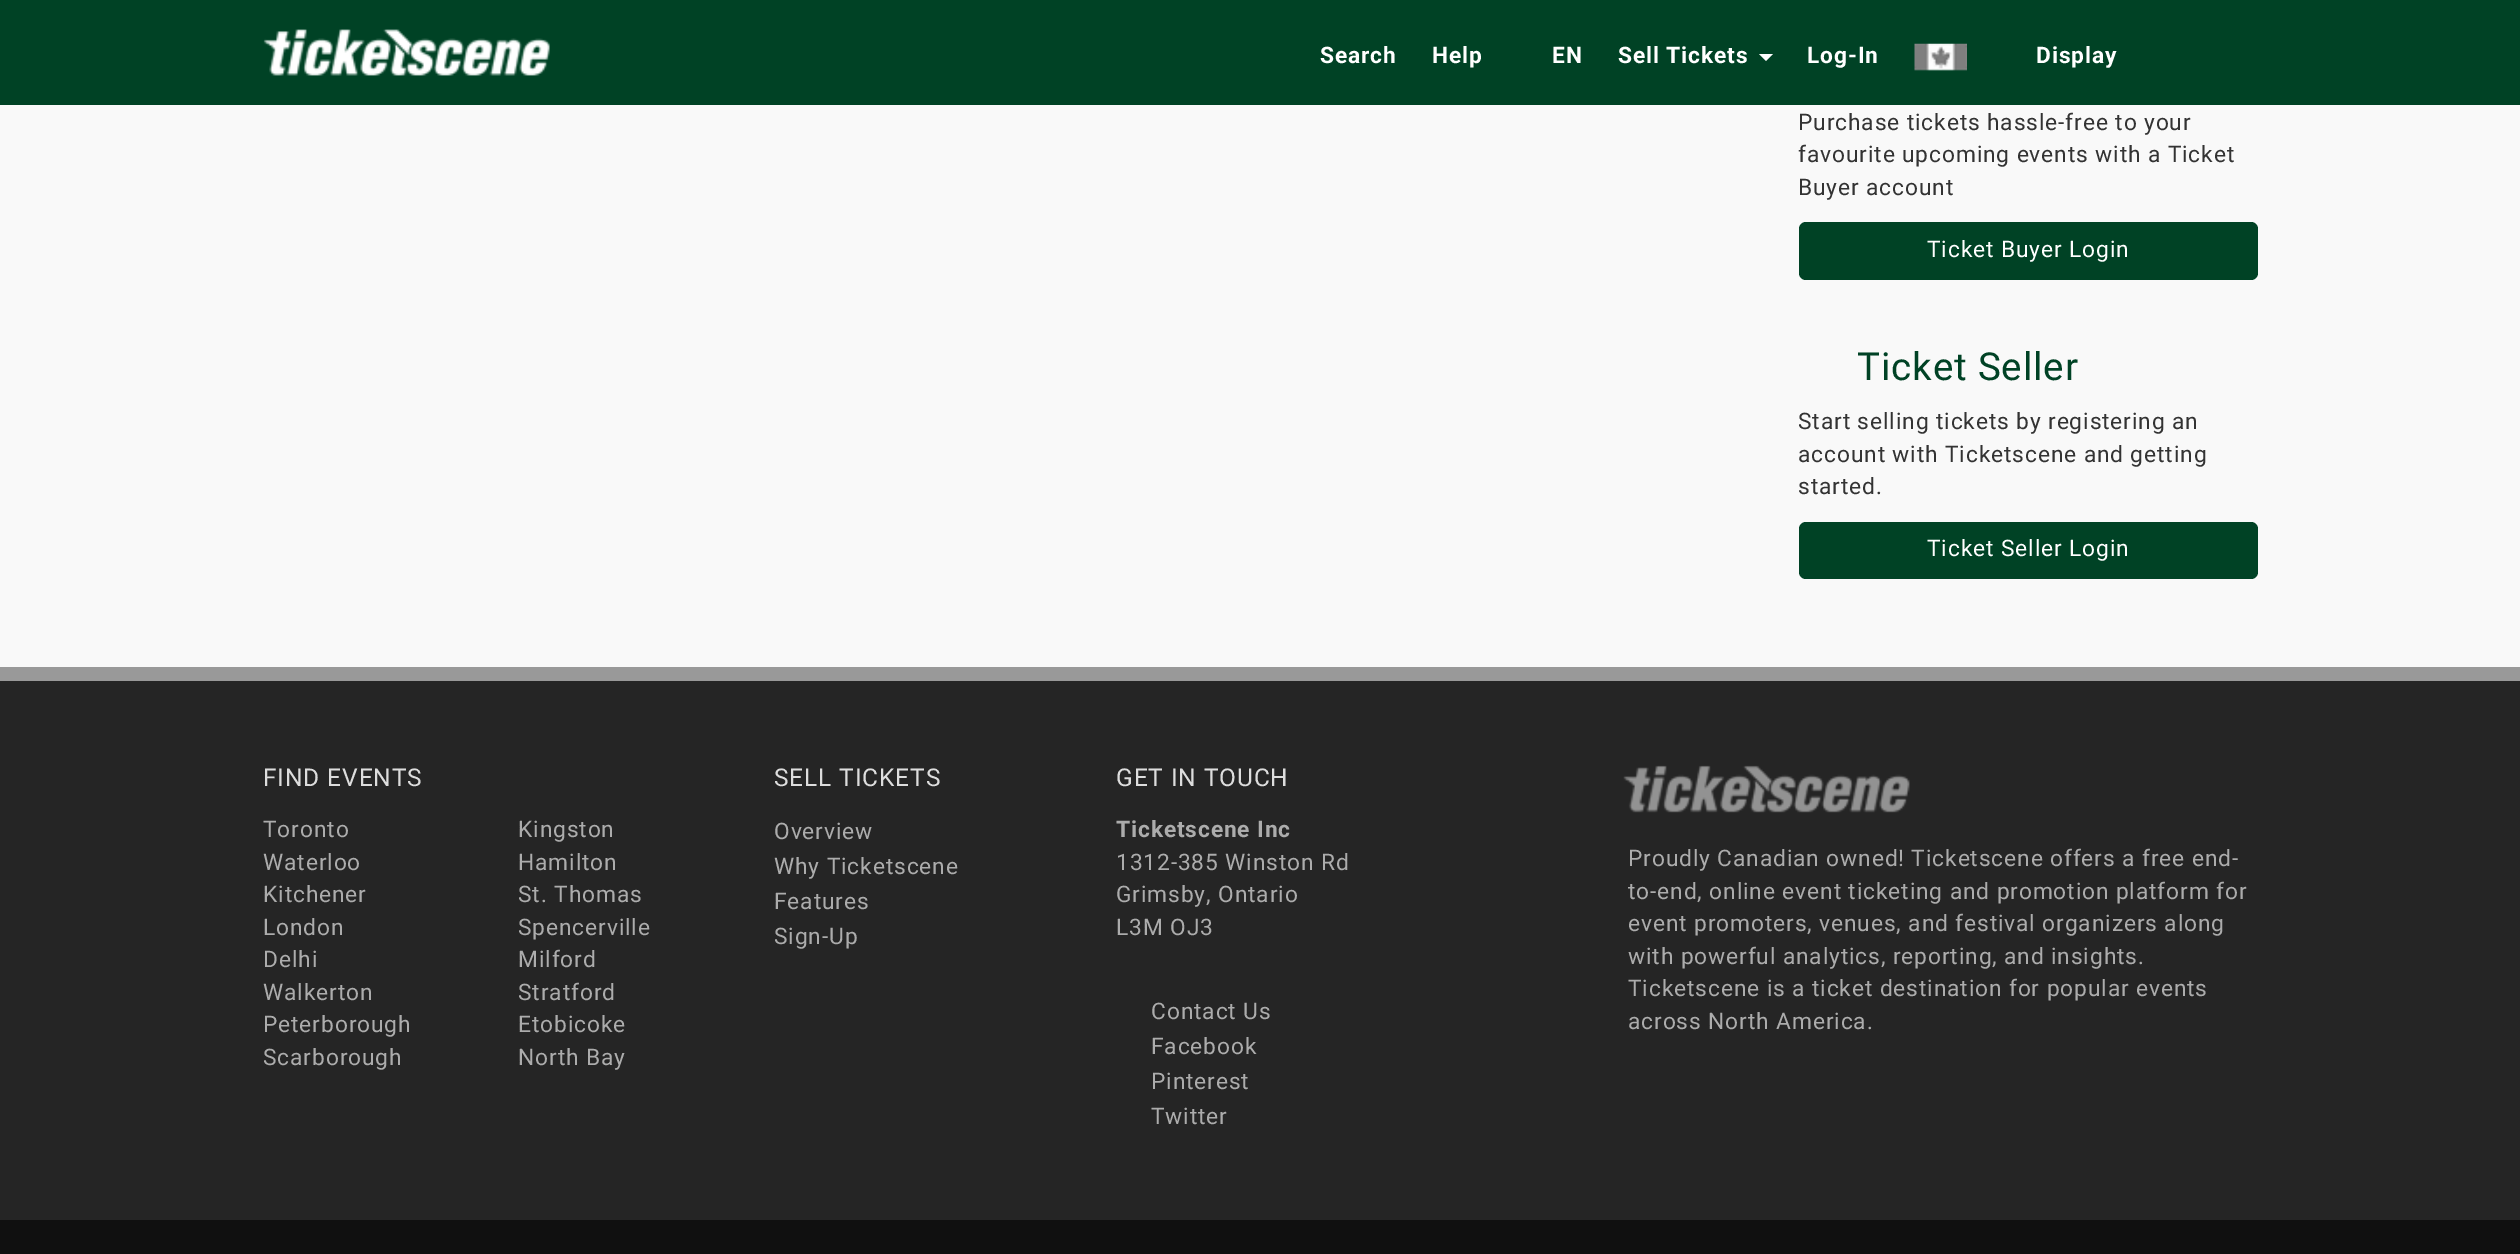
%!PS
<< /PageSize [2520 1254] >> setpagedevice
/rgb { dup -16 bitshift 255 div exch dup -8 bitshift 255 and 255 div exch 255 and 255 div setrgbcolor } def
/font { [ exch dup neg 0 0 3 -1 roll 0 0 ] selectfont } def
/roundrect { 5 dict begin { /r /h /w /y /x } { exch def } forall
  x r add y moveto x w add y 2 copy h add r arct x w add y h add x 1 index r arct
  x y h add x y r arct x y 2 copy exch w add exch r arct closepath end } def
/picture { 5 dict begin { /h /w /y /x /name } { exch def } forall
  gsave x y translate w h scale
  w h 8 [w 0 0 h 0 0] name (r) file false 3 colorimage grestore end } def
0 1254 translate 1 -1 scale
4 setmiterlimit
16#F9F9F9 rgb
0 0 2520 1254 rectfill
16#004225 rgb
0 0 2520 105 rectfill
(pic1.raw) 263 29 287 47 picture
/Roboto-Bold 22.75 font
16#FFFFFF rgb
1320 63 moveto 0.88 0 (Search) ashow
1432 63 moveto 0.88 0 (Help) ashow
1552 63 moveto 0.88 0 (EN) ashow
1618 63 moveto 0.88 0 (Sell Tickets) ashow
1759 54 moveto 1773 54 lineto 1766 61 lineto closepath fill
1807 63 moveto 0.88 0 (Log-In) ashow
(pic2.raw) 1914 43 53 28 picture
2036 63 moveto 0.88 0 (Display) ashow
/Roboto-Regular 22.75 font
16#333333 rgb
1798 130 moveto 0.88 0 (Purchase tickets hassle-free to your) ashow
1798 162 moveto 0.88 0 (favourite upcoming events with a Ticket) ashow
1798 195 moveto 0.88 0 (Buyer account) ashow
16#004225 rgb
1799 222 459 58 7 roundrect fill
16#FFFFFF rgb
1927 257 moveto 0.88 0 (Ticket Buyer Login) ashow
/Roboto-Regular 38.5 font
16#004225 rgb
1857 380 moveto 0.88 0 (Ticket Seller) ashow
/Roboto-Regular 22.75 font
16#333333 rgb
1798 429 moveto 0.88 0 (Start selling tickets by registering an) ashow
1798 462 moveto 0.88 0 (account with Ticketscene and getting) ashow
1798 494 moveto 0.88 0 (started.) ashow
16#004225 rgb
1799 522 459 57 7 roundrect fill
16#FFFFFF rgb
1927 556 moveto 0.88 0 (Ticket Seller Login) ashow
16#252525 rgb
0 681 2520 539 rectfill
16#999999 rgb
0 667 2520 14 rectfill
/Roboto-Regular 24.5 font
16#DDDDDD rgb
263 786 moveto 0.88 0 (FIND EVENTS) ashow
/Roboto-Regular 22.75 font
16#ACACAC rgb
263 837 moveto 0.88 0 (Toronto) ashow
518 837 moveto 0.88 0 (Kingston) ashow
263 870 moveto 0.88 0 (Waterloo) ashow
518 870 moveto 0.88 0 (Hamilton) ashow
263 902 moveto 0.88 0 (Kitchener) ashow
518 902 moveto 0.88 0 (St. Thomas) ashow
263 935 moveto 0.88 0 (London) ashow
518 935 moveto 0.88 0 (Spencerville) ashow
263 967 moveto 0.88 0 (Delhi) ashow
518 967 moveto 0.88 0 (Milford) ashow
263 1000 moveto 0.88 0 (Walkerton) ashow
518 1000 moveto 0.88 0 (Stratford) ashow
263 1032 moveto 0.88 0 (Peterborough) ashow
518 1032 moveto 0.88 0 (Etobicoke) ashow
263 1065 moveto 0.88 0 (Scarborough) ashow
518 1065 moveto 0.88 0 (North Bay) ashow
/Roboto-Regular 24.5 font
16#DDDDDD rgb
774 786 moveto 0.88 0 (SELL TICKETS) ashow
/Roboto-Regular 22.75 font
16#ACACAC rgb
774 839 moveto 0.88 0 (Overview) ashow
774 874 moveto 0.88 0 (Why Ticketscene) ashow
774 909 moveto 0.88 0 (Features) ashow
774 944 moveto 0.88 0 (Sign-Up) ashow
/Roboto-Regular 24.5 font
16#DDDDDD rgb
1116 786 moveto 0.88 0 (GET IN TOUCH) ashow
/Roboto-Bold 22.75 font
16#ACACAC rgb
1116 837 moveto 0.88 0 (Ticketscene Inc) ashow
/Roboto-Regular 22.75 font
1116 870 moveto 0.88 0 (1312-385 Winston Rd) ashow
1116 902 moveto 0.88 0 (Grimsby, Ontario) ashow
1116 935 moveto 0.88 0 (L3M OJ3) ashow
1151 1019 moveto 0.88 0 (Contact Us) ashow
1151 1054 moveto 0.88 0 (Facebook) ashow
1151 1089 moveto 0.88 0 (Pinterest) ashow
1151 1124 moveto 0.88 0 (Twitter) ashow
(pic3.raw) 1623 765 287 48 picture
1628 866 moveto 0.88 0 (Proudly Canadian owned! Ticketscene offers a free end-) ashow
1628 899 moveto 0.88 0 (to-end, online event ticketing and promotion platform for) ashow
1628 931 moveto 0.88 0 (event promoters, venues, and festival organizers along) ashow
1628 964 moveto 0.88 0 (with powerful analytics, reporting, and insights.) ashow
1628 996 moveto 0.88 0 (Ticketscene is a ticket destination for popular events) ashow
1628 1029 moveto 0.88 0 (across North America.) ashow
16#101010 rgb
0 1220 2520 34 rectfill
showpage
